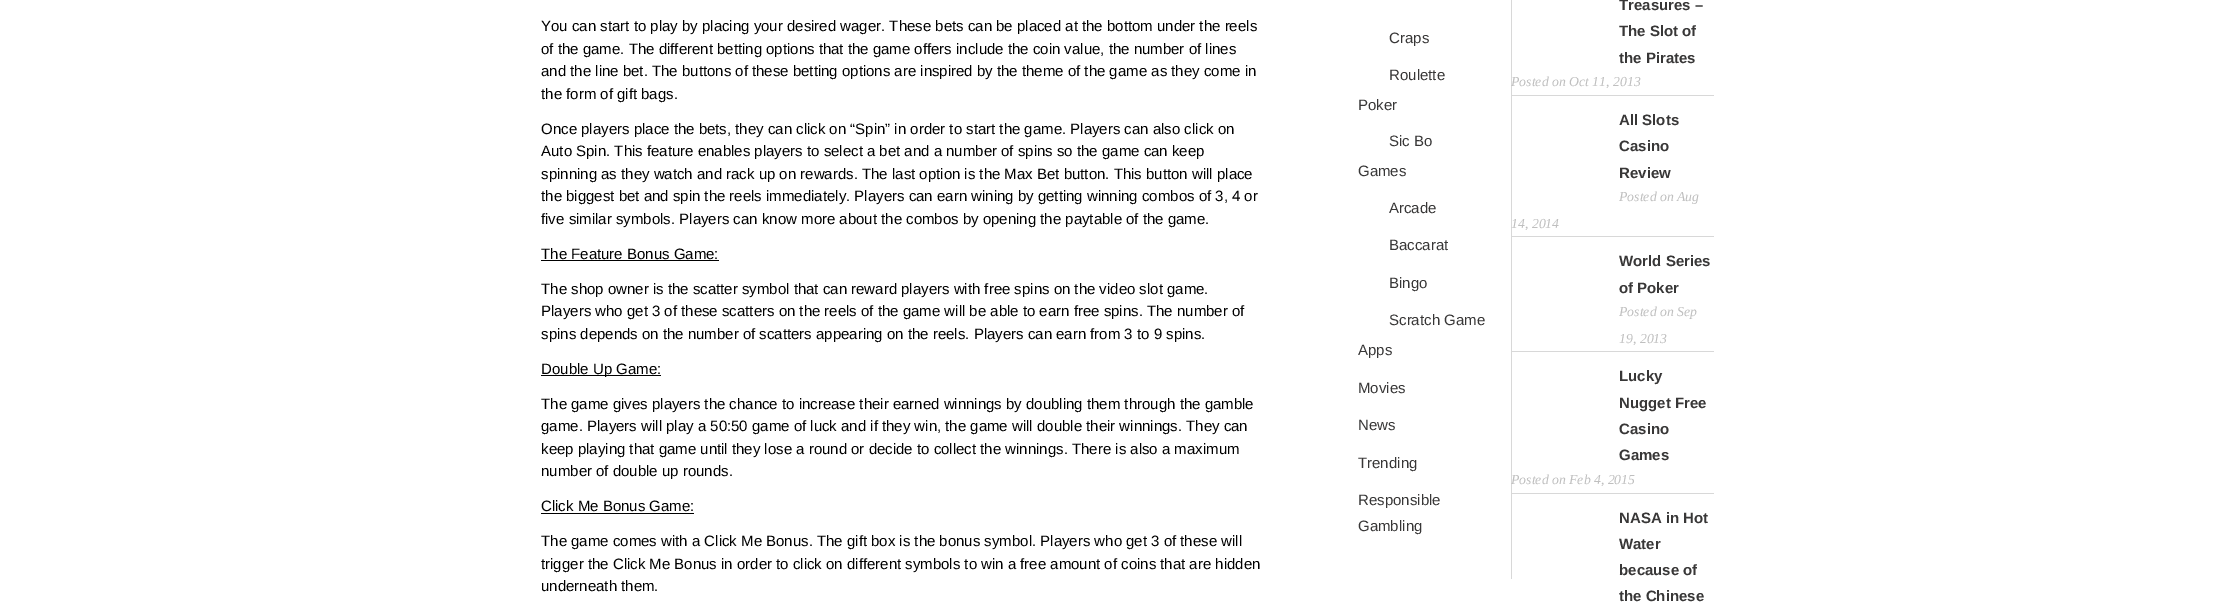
%!PS
<< /PageSize [2226 603] >> setpagedevice
/rgb { dup -16 bitshift 255 div exch dup -8 bitshift 255 and 255 div exch 255 and 255 div setrgbcolor } def
/font { [ exch dup neg 0 0 3 -1 roll 0 0 ] selectfont } def
/text { moveto show } def
0 603 translate 1 -1 scale
4 setmiterlimit
/s1 { /LiberationSans-Regular 15 font 16#000000 rgb } def
/s2 { /LiberationSans-Regular 15 font 16#383737 rgb } def
/s3 { /LiberationSans-Bold 15 font 16#383737 rgb } def
/s4 { /LiberationSerif-Italic 13.75 font 16#BFBFBF rgb } def
16#FFFFFF rgb
0 0 2226 603 rectfill
s1
(You can start to play by placing your desired wager. These bets can be placed at the bottom under the reels) 541 31 text
(of the game. The different betting options that the game offers include the coin value, the number of lines) 541 54 text
(and the line bet. The buttons of these betting options are inspired by the theme of the game as they come in) 541 76 text
(the form of gift bags.) 541 99 text
(Once players place the bets, they can click on “Spin” in order to start the game. Players can also click on) 541 134 text
(Auto Spin. This feature enables players to select a bet and a number of spins so the game can keep) 541 156 text
(spinning as they watch and rack up on rewards. The last option is the Max Bet button. This button will place) 541 179 text
(the biggest bet and spin the reels immediately. Players can earn wining by getting winning combos of 3, 4 or) 541 201 text
(five similar symbols. Players can know more about the combos by opening the paytable of the game.) 541 224 text
(The Feature Bonus Game:) 541 259 text
541 260 178 1 rectfill
(The shop owner is the scatter symbol that can reward players with free spins on the video slot game.) 541 294 text
(Players who get 3 of these scatters on the reels of the game will be able to earn free spins. The number of) 541 316 text
(spins depends on the number of scatters appearing on the reels. Players can earn from 3 to 9 spins.) 541 339 text
541 375 120 1 rectfill
(Double Up Game:) 541 374 text
(The game gives players the chance to increase their earned winnings by doubling them through the gamble) 541 409 text
(game. Players will play a 50:50 game of luck and if they win, the game will double their winnings. They can) 541 431 text
(keep playing that game until they lose a round or decide to collect the winnings. There is also a maximum) 541 454 text
(number of double up rounds.) 541 476 text
(Click Me Bonus Game:) 541 511 text
541 513 153 1 rectfill
(The game comes with a Click Me Bonus. The gift box is the bonus symbol. Players who get 3 of these will) 541 546 text
(trigger the Click Me Bonus in order to click on different symbols to win a free amount of coins that are hidden) 541 569 text
(underneath them.) 541 591 text
16#D8D8D8 rgb
1511 0 1 579 rectfill
s2
(Craps) 1389 43 text
(Roulette) 1389 80 text
(Poker) 1358 110 text
(Sic Bo) 1389 146 text
(Games) 1358 176 text
(Arcade) 1389 213 text
(Baccarat) 1389 250 text
(Bingo) 1389 288 text
(Scratch Game) 1389 325 text
(Apps) 1358 355 text
(Movies) 1358 393 text
(News) 1358 430 text
(Trending) 1358 468 text
(Responsible) 1358 505 text
(Gambling) 1358 531 text
16#D8D8D8 rgb
1511 95 203 1 rectfill
s3
(Treasures –) 1619 10 text
(The Slot of) 1619 36 text
(the Pirates) 1619 63 text
s4
(Posted on Oct 11, 2013) 1511 86 text
16#D8D8D8 rgb
1511 236 203 1 rectfill
s3
(All Slots) 1619 125 text
(Casino) 1619 151 text
(Review) 1619 178 text
s4
(Posted on Aug) 1619 201 text
(14, 2014) 1511 228 text
16#D8D8D8 rgb
1511 351 203 1 rectfill
s3
(World Series) 1619 266 text
(of Poker) 1619 293 text
s4
(Posted on Sep) 1619 316 text
(19, 2013) 1619 343 text
16#D8D8D8 rgb
1511 493 203 1 rectfill
s3
(Lucky) 1619 381 text
(Nugget Free) 1619 408 text
(Casino) 1619 434 text
(Games) 1619 460 text
s4
(Posted on Feb 4, 2015) 1511 484 text
s3
(NASA in Hot) 1619 523 text
(Water) 1619 549 text
(because of) 1619 575 text
(the Chinese) 1619 601 text
showpage
